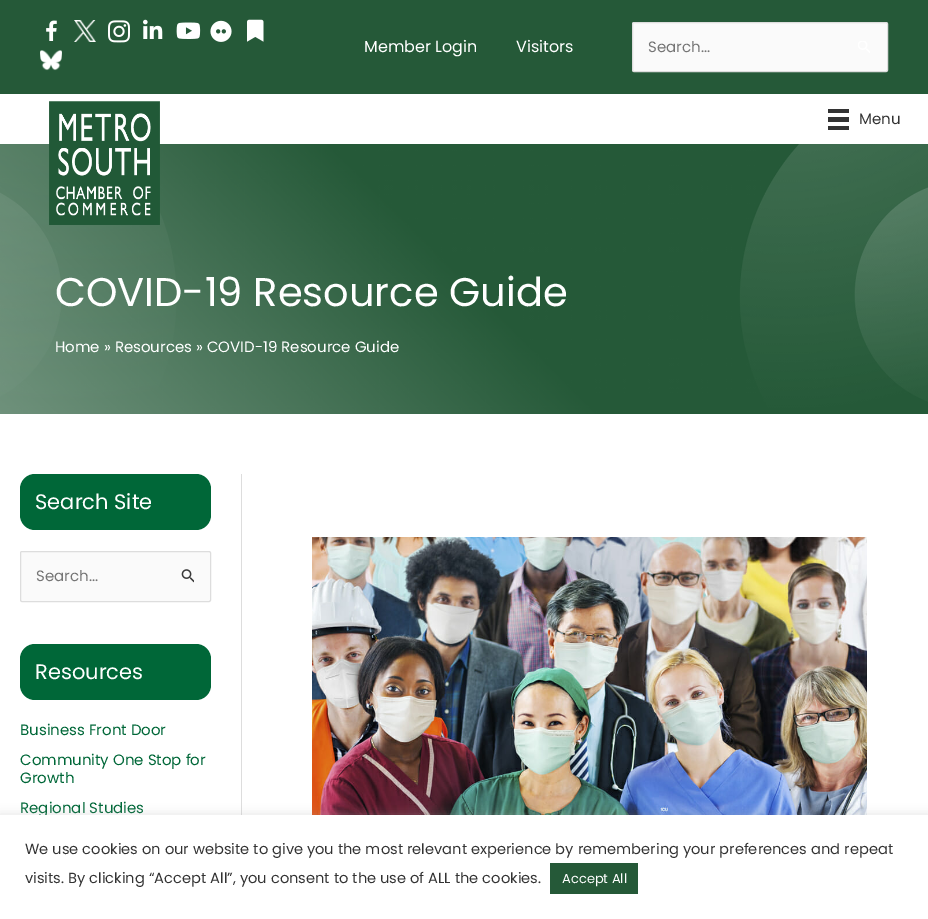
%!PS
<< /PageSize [928 919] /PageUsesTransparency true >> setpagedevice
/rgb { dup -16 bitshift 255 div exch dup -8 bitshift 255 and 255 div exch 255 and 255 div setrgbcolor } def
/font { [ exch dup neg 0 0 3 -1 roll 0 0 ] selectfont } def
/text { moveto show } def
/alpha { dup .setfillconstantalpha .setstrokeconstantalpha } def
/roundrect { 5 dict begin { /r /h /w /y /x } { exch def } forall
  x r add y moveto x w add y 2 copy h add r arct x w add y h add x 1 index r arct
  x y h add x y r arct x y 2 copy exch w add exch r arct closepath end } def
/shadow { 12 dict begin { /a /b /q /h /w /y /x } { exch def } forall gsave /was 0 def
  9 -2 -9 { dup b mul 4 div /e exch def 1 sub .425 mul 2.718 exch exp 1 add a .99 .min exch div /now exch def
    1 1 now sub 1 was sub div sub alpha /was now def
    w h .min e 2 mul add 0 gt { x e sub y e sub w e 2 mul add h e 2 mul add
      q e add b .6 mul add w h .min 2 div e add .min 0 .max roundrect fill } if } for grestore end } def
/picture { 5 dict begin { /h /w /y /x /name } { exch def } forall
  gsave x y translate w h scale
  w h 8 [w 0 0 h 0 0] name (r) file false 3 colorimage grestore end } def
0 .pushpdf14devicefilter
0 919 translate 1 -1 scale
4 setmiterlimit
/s1 { /Poppins-Regular 16 font 16#FFFFFF rgb } def
/s2 { /Poppins-Regular 15 font 16#757575 rgb } def
/s3 { /Poppins-Regular 15 font 16#333333 rgb } def
/s4 { /Poppins-Regular 40 font 16#FFFFFF rgb } def
/s5 { /Poppins-Regular 15 font 16#FFFFFF rgb } def
/s6 { /Poppins-Regular 21 font 16#FFFFFF rgb } def
/s7 { /Poppins-Regular 15 font 16#006738 rgb } def
/s8 { /Poppins-Regular 14.67 font 16#333333 rgb } def
/s9 { /Poppins-Regular 13 font 16#FFFFFF rgb } def
16#FFFFFF rgb
0 0 928 919 rectfill
16#255938 rgb
0 0 928 94 rectfill
(pic1.raw) 46 20 11 21 picture
(pic2.raw) 74 20 22 22 picture
(pic3.raw) 108 20 22 23 picture
(pic4.raw) 143 19 20 20 picture
(pic5.raw) 176 22 25 17 picture
(pic6.raw) 210 20 22 22 picture
(pic7.raw) 247 19 17 23 picture
(pic8.raw) 40 50 22 21 picture
s1
(Member Login) 364 52 text
(Visitors) 516 52 text
16#FAFAFA rgb
632.5 22.5 255 49 1.5 roundrect gsave fill grestore
16#DDDDDD rgb
stroke
s2
(Search...) 648 52 text
(pic9.raw) 858 41 12 12 picture
(pic11.raw) 0 144 928 270 picture
(pic10.raw) 49 101 111 124 picture
16#333333 rgb
828 109 21 4 rectfill
828 117 21 5 rectfill
828 126 21 4 rectfill
(Menu) 859 124 text
s4
(COVID-19 Resource Guide) 55 306 text
s5
(Home » Resources » COVID-19 Resource Guide) 55 352 text
16#DDDDDD rgb
241 474 1 341 rectfill
16#006738 rgb
20 474 191 56 15 roundrect fill
s6
(Search Site) 35 509 text
16#FAFAFA rgb
20.5 551.5 190 50 1.5 roundrect gsave fill grestore
16#DDDDDD rgb
stroke
s2
(Search...) 36 581 text
(pic12.raw) 181 569 13 14 picture
16#006738 rgb
20 644 191 56 15 roundrect fill
s6
(Resources) 35 679 text
s7
(Business Front Door) 20 735 text
(Community One Stop for) 20 765 text
(Growth) 20 783 text
(Regional Studies) 20 813 text
(pic13.raw) 312 537 555 278 picture
16#ACABAB rgb
0 814 928 104 0 5 0.3 shadow
16#FFFFFF rgb
0 815 928 104 rectfill
s8
(We use cookies on our website to give you the most relevant experience by remembering your preferences and repeat) 25 854 text
(visits. By clicking “Accept All”, you consent to the use of ALL the cookies.) 25 883 text
16#255938 rgb
550 863 88 31 rectfill
s9
(Accept All) 562 883 text
.poppdf14devicefilter showpage
